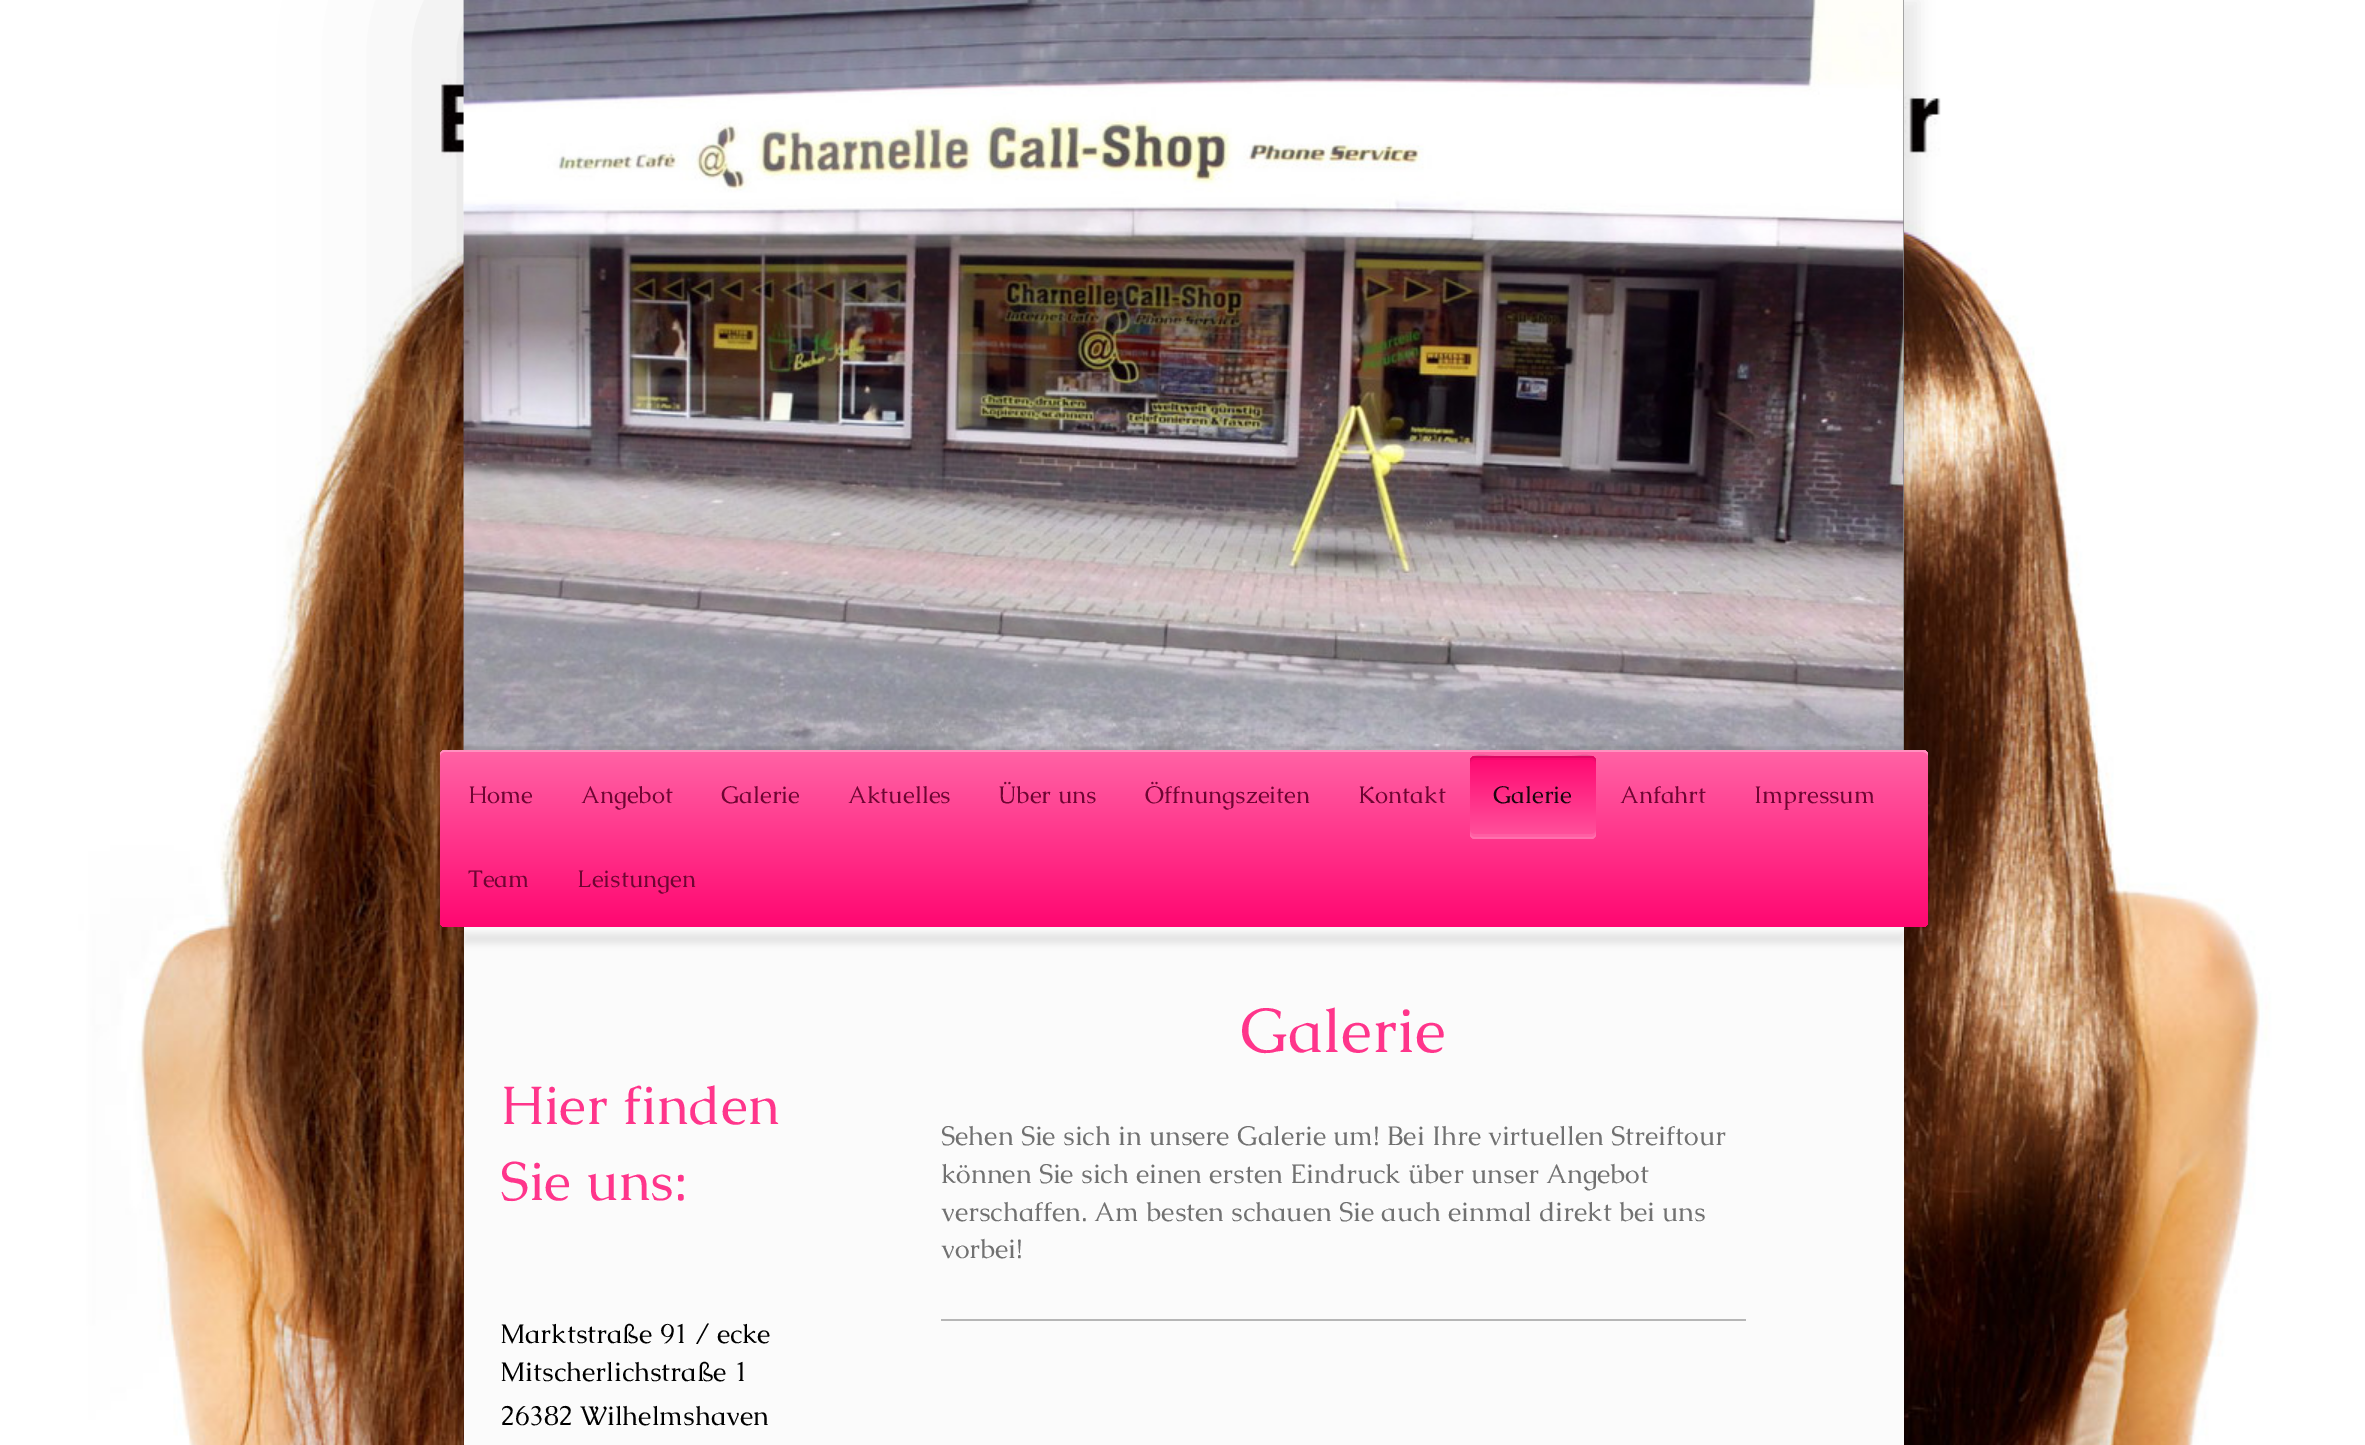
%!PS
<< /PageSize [2365 1445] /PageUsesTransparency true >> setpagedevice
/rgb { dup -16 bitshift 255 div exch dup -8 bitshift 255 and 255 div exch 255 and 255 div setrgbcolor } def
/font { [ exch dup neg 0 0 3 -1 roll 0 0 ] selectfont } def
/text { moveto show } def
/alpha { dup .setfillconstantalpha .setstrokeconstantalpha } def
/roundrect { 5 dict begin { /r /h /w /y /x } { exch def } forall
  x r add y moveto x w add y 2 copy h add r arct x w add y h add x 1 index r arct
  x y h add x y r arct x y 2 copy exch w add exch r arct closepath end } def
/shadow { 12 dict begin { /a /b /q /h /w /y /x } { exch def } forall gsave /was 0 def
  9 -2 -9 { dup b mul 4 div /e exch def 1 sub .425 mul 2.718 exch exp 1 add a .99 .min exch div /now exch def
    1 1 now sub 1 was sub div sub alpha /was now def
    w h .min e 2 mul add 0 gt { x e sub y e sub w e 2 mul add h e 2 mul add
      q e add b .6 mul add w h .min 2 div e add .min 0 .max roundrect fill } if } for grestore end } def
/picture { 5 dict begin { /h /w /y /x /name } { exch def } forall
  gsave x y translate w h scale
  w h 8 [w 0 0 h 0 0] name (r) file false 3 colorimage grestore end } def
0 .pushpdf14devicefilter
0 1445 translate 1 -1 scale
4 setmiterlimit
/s1 { /Caudex-Regular 24 font 16#6E0532 rgb } def
/s2 { /Caudex-Regular 24 font 16#1A050E rgb } def
/s3 { /Caudex-Regular 54.5 font 16#FF358B rgb } def
/s4 { /Caudex-Regular 27 font 16#000000 rgb } def
/s5 { /Caudex-Regular 62.5 font 16#FF358B rgb } def
/s6 { /Caudex-Regular 27 font 16#717171 rgb } def
16#FFFFFF rgb
0 0 2365 1445 rectfill
(pic1.raw) 0 0 2365 1445 picture
16#000000 rgb
479 0 150 900 0 90 0.15 shadow
(pic2.raw) 463 0 1 750 picture
1769 0 150 900 0 7.5 0.08 shadow
16#868686 rgb
1903 0 1 750 rectfill
(pic3.raw) 463 0 1441 750 picture
16#000000 rgb
464 746 1440 129 0 1 0.08 shadow
gsave 440 750 1488 177 5 roundrect clip newpath
<< /ShadingType 2 /ColorSpace /DeviceRGB /Coords [440 750 440 927] /Extend [true true] /Function << /FunctionType 2 /Domain [0 1] /C0 [1 0.388 0.647] /C1 [1 0.027 0.443] /N 1 >> >> shfill grestore
0.3 alpha
16#FFFFFF rgb
444 752 moveto 1923 752 lineto 1925 752 1928 754 1928 756 curveto 1928 755 lineto 1928 752 1926 750 1923 750 curveto 445 750 lineto 442 750 440 752 440 755 curveto 440 756 lineto 440 754 442 752 444 752 curveto closepath fill
1 alpha
s1
(Home) 468 803 text
(Angebot) 581 803 text
(Galerie) 721 803 text
(Aktuelles) 848 803 text
(Über uns) 998 803 text
(Öffnungszeiten) 1145 803 text
(Kontakt) 1358 803 text
gsave 1470 756 126 83 5 roundrect clip newpath
<< /ShadingType 2 /ColorSpace /DeviceRGB /Coords [1470 839 1470 756] /Extend [true true] /Function << /FunctionType 2 /Domain [0 1] /C0 [1 0.329 0.616] /C1 [1 0.027 0.443] /N 1 >> >> shfill grestore
0.1 alpha
16#000000 rgb
1474 758 moveto 1592 758 lineto 1594 758 1596 760 1596 762 curveto 1596 751 1576 756 1572 756 curveto 1494 756 lineto 1490 756 1470 751 1470 762 curveto 1470 760 1472 758 1474 758 curveto closepath fill
0.04 alpha
1474 760 moveto 1592 760 lineto 1594 760 1596 763 1596 765 curveto 1596 761 lineto 1596 758 1594 756 1591 756 curveto 1475 756 lineto 1472 756 1470 758 1470 761 curveto 1470 765 lineto 1470 763 1472 760 1474 760 curveto closepath fill
0.08 alpha
16#FFFFFF rgb
1470 830 moveto 1470 834 lineto 1470 837 1472 839 1475 839 curveto 1591 839 lineto 1594 839 1596 837 1596 834 curveto 1596 830 lineto 1596 832 1594 834 1592 834 curveto 1474 834 lineto 1472 834 1470 832 1470 830 curveto closepath fill
0.1 alpha
1470 832 moveto 1470 834 lineto 1470 837 1472 839 1475 839 curveto 1591 839 lineto 1594 839 1596 837 1596 834 curveto 1596 832 lineto 1596 835 1594 837 1592 837 curveto 1474 837 lineto 1472 837 1470 835 1470 832 curveto closepath fill
1 alpha
s2
(Galerie) 1493 803 text
s1
(Anfahrt) 1620 803 text
(Impressum) 1754 803 text
(Team) 468 887 text
(Leistungen) 577 887 text
16#FBFBFB rgb
464 927 1440 518 rectfill
16#000000 rgb
464 933 1440 11 0 3 0.08 shadow
s3
(Hier finden) 500 1124 text
(Sie uns:) 500 1200 text
s4
(Marktstraße 91 / ecke) 500 1343 text
(Mitscherlichstraße 1) 500 1381 text
(26382 Wilhelmshaven) 500 1425 text
s5
(Galerie) 1240 1052 text
s6
(Sehen Sie sich in unsere Galerie um! Bei Ihre virtuellen Streiftour) 941 1145 text
(können Sie sich einen ersten Eindruck über unser Angebot) 941 1183 text
(verschaffen. Am besten schauen Sie auch einmal direkt bei uns) 941 1221 text
(vorbei!) 941 1258 text
16#B6B6B6 rgb
941 1319 805 2 rectfill
.poppdf14devicefilter showpage
